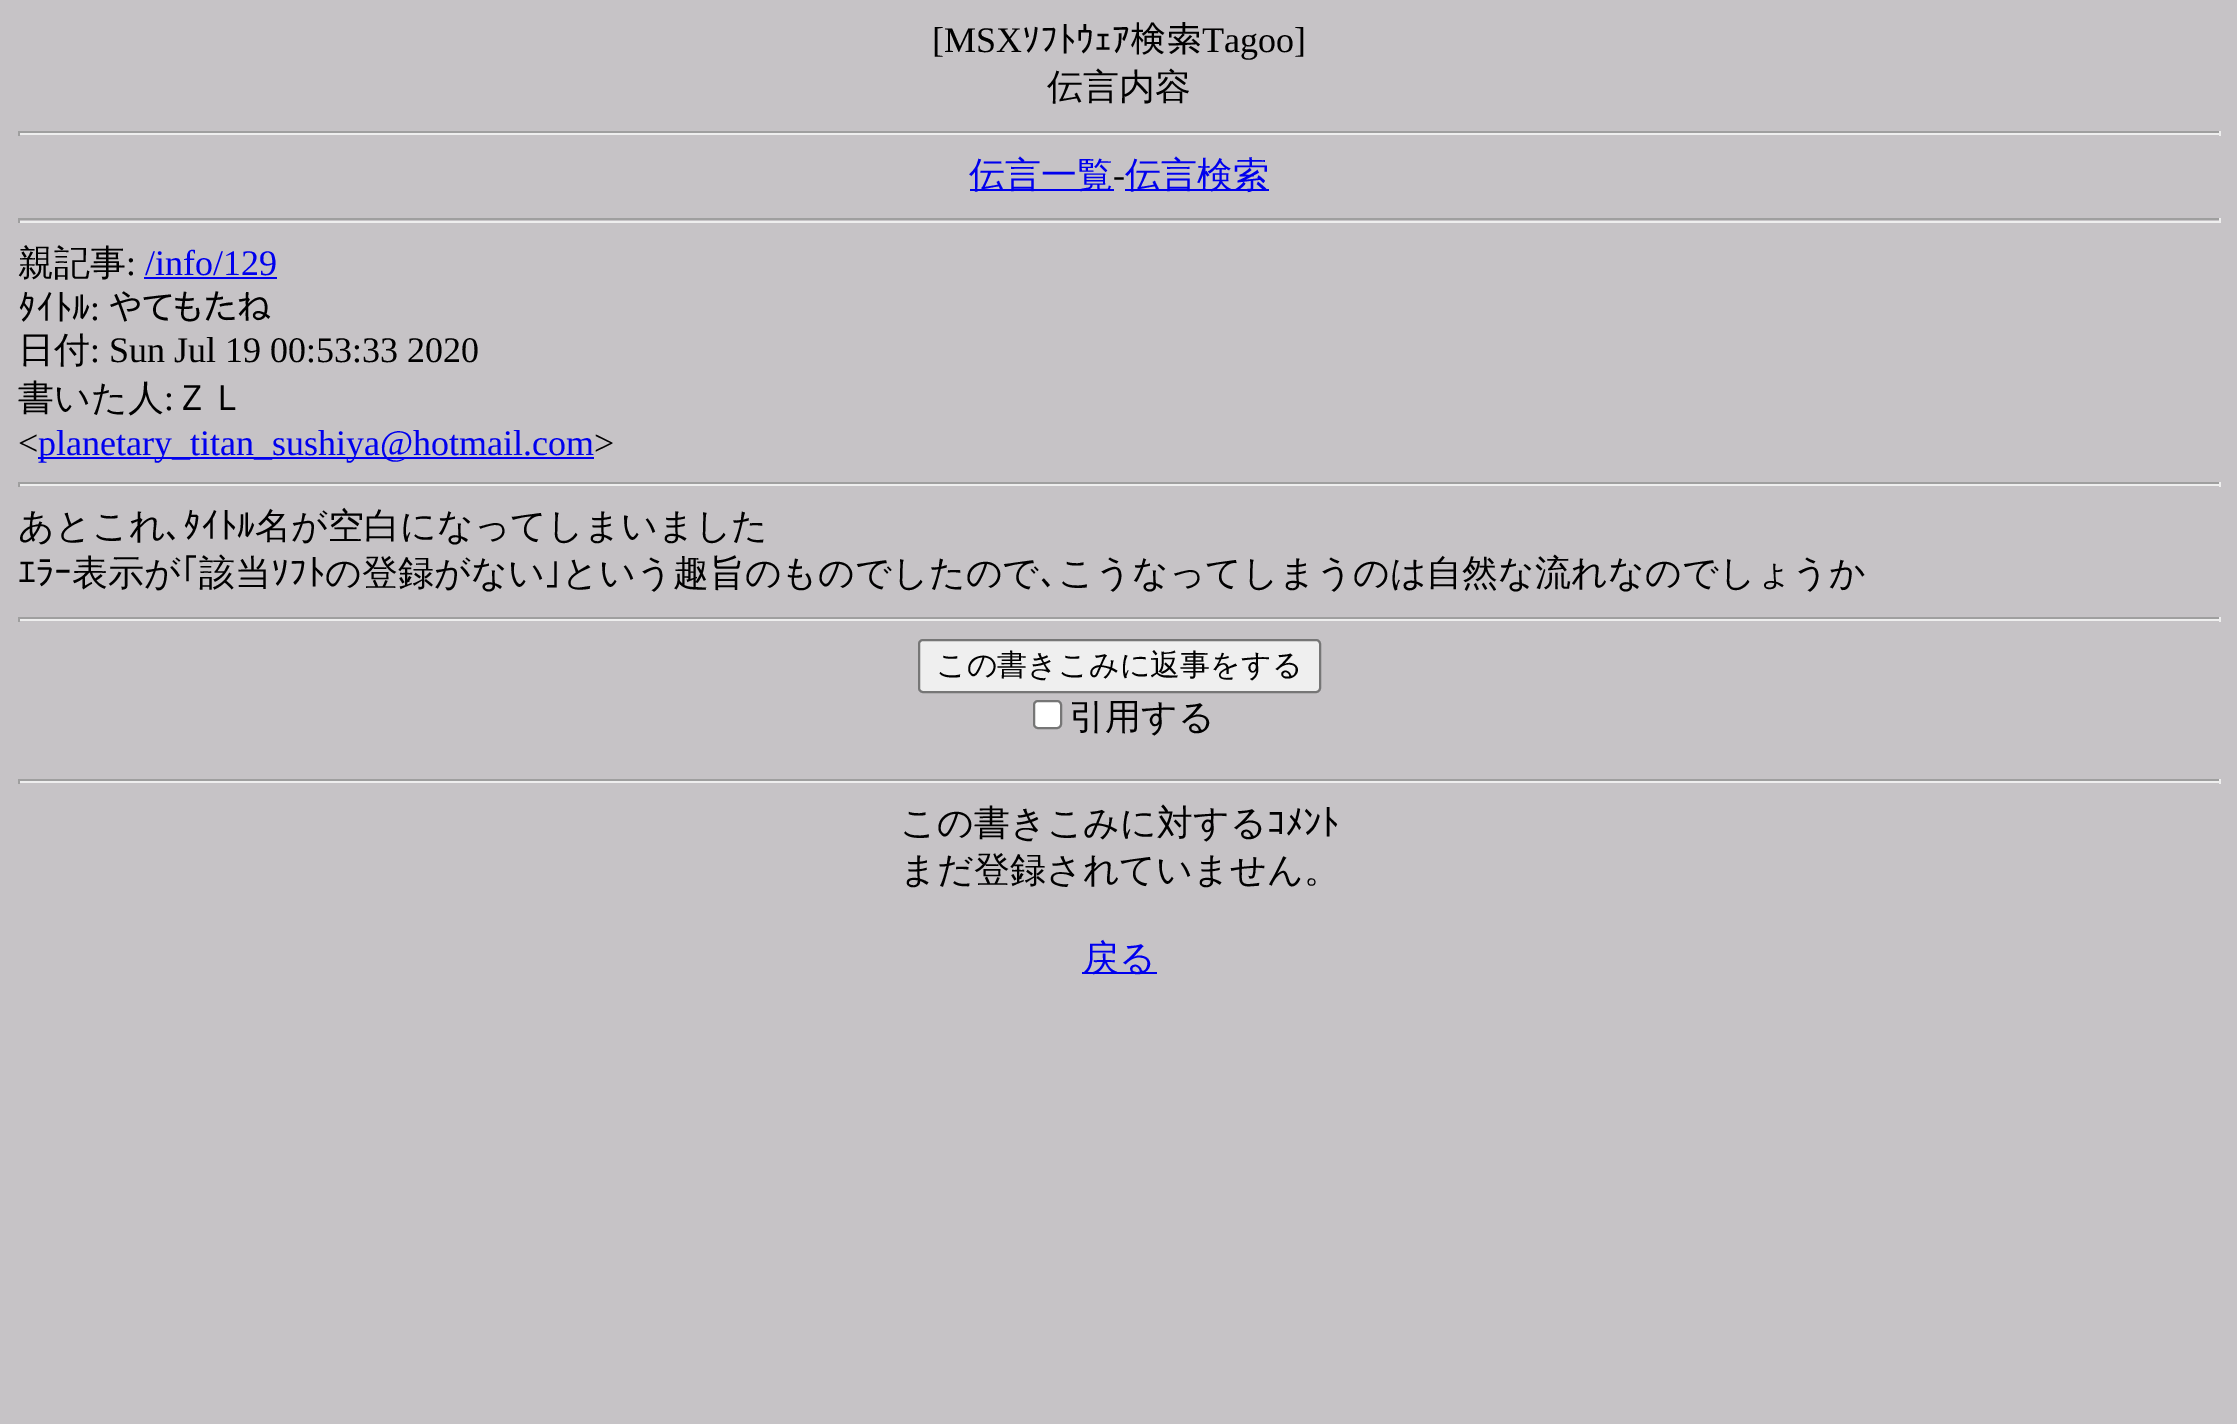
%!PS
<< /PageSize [2237 1424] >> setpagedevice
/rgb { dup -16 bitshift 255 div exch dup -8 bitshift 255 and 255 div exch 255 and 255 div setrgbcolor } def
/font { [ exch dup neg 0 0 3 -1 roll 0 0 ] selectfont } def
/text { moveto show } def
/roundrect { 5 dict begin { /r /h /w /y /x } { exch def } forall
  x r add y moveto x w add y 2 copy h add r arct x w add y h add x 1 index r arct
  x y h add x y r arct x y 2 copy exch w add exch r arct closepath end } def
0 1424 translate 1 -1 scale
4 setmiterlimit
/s1 { /LiberationSerif-Regular 36 font 16#000000 rgb } def
/s2 { /IPAPGothic-Regular 36 font 16#000000 rgb } def
/s3 { /WenQuanYiZenHei-Medium 36 font 16#000000 rgb } def
/s4 { /WenQuanYiZenHei-Medium 36 font 16#0000EE rgb } def
/s5 { /LiberationSerif-Regular 36 font 16#0000EE rgb } def
/s6 { /WenQuanYiZenHei-Medium 30 font 16#000000 rgb } def
16#C6C3C6 rgb
0 0 2237 1424 rectfill
s1
([MSX) 932 52 text
s2
(ｿﾌﾄｳｪｱ検索) 1022 52 text
s1
(Tagoo]) 1202 52 text
s3
(伝言内容) 1047 99 text
16#9F9F9F rgb
18 131 2203 2 rectfill
16#EEEEEE rgb
2219 131 2 5 rectfill
18 133 2203 2 rectfill
16#9F9F9F rgb
18 131 2 5 rectfill
16#0000EE rgb
970 189 144 2 rectfill
(伝言一覧) 969 187 text
s1
(-) 1113 187 text
16#0000EE rgb
1125 189 144 2 rectfill
s4
(伝言検索) 1125 187 text
16#9F9F9F rgb
18 218 2203 2 rectfill
16#EEEEEE rgb
2219 218 2 5 rectfill
18 221 2203 2 rectfill
16#9F9F9F rgb
18 218 2 5 rectfill
s3
(親記事) 18 275 text
s1
(:) 126 275 text
s5
(/info/129) 145 275 text
144 277 133 2 rectfill
s2
(ﾀｲﾄﾙ) 18 320 text
s1
(:) 90 320 text
s2
(やてもたね) 109 320 text
s3
(日付) 18 362 text
s1
(: Sun Jul 19 00:53:33 2020) 90 362 text
s3
(書いた人) 18 410 text
s1
(:) 164 410 text
s3
(ＺＬ) 174 410 text
s1
(<) 18 455 text
16#0000EE rgb
38 457 556 2 rectfill
(planetary_titan_sushiya@hotmail.com) 38 455 text
s1
(>) 594 455 text
16#9F9F9F rgb
18 482 2203 2 rectfill
16#EEEEEE rgb
2219 482 2 5 rectfill
18 484 2203 2 rectfill
16#9F9F9F rgb
18 482 2 5 rectfill
s3
(あとこれ) 18 538 text
s2
(､ﾀｲﾄﾙ) 165 538 text
s3
(名が空白になってしまいました) 255 538 text
s2
(ｴﾗｰ) 18 585 text
s3
(表示が) 72 585 text
s2
(｢) 181 585 text
s3
(該当) 199 585 text
s2
(ｿﾌﾄ) 271 585 text
s3
(の登録がない) 325 585 text
s2
(｣) 544 585 text
s3
(という趣旨のものでしたので) 562 585 text
s2
(､) 1040 585 text
s3
(こうなってしまうのは自然な流れなのでしょうか) 1058 585 text
16#9F9F9F rgb
18 617 2203 2 rectfill
16#EEEEEE rgb
2219 617 2 5 rectfill
18 619 2203 2 rectfill
16#9F9F9F rgb
18 617 2 5 rectfill
16#EFEFEF rgb
919 640 401 52 4 roundrect gsave fill grestore
16#767676 rgb
2 setlinewidth
stroke
s6
(この書きこみに返事をする) 936 675 text
16#FFFFFF rgb
1034 701 27 27 4 roundrect gsave fill grestore
16#767676 rgb
stroke
s3
(引用する) 1069 729 text
16#9F9F9F rgb
18 779 2203 2 rectfill
16#EEEEEE rgb
2219 779 2 5 rectfill
18 781 2203 2 rectfill
16#9F9F9F rgb
18 779 2 5 rectfill
s3
(この書きこみに対する) 900 835 text
s2
(ｺﾒﾝﾄ) 1267 835 text
s3
(まだ登録されていません。) 900 882 text
16#0000EE rgb
1082 972 75 2 rectfill
(戻る) 1083 970 text
showpage
